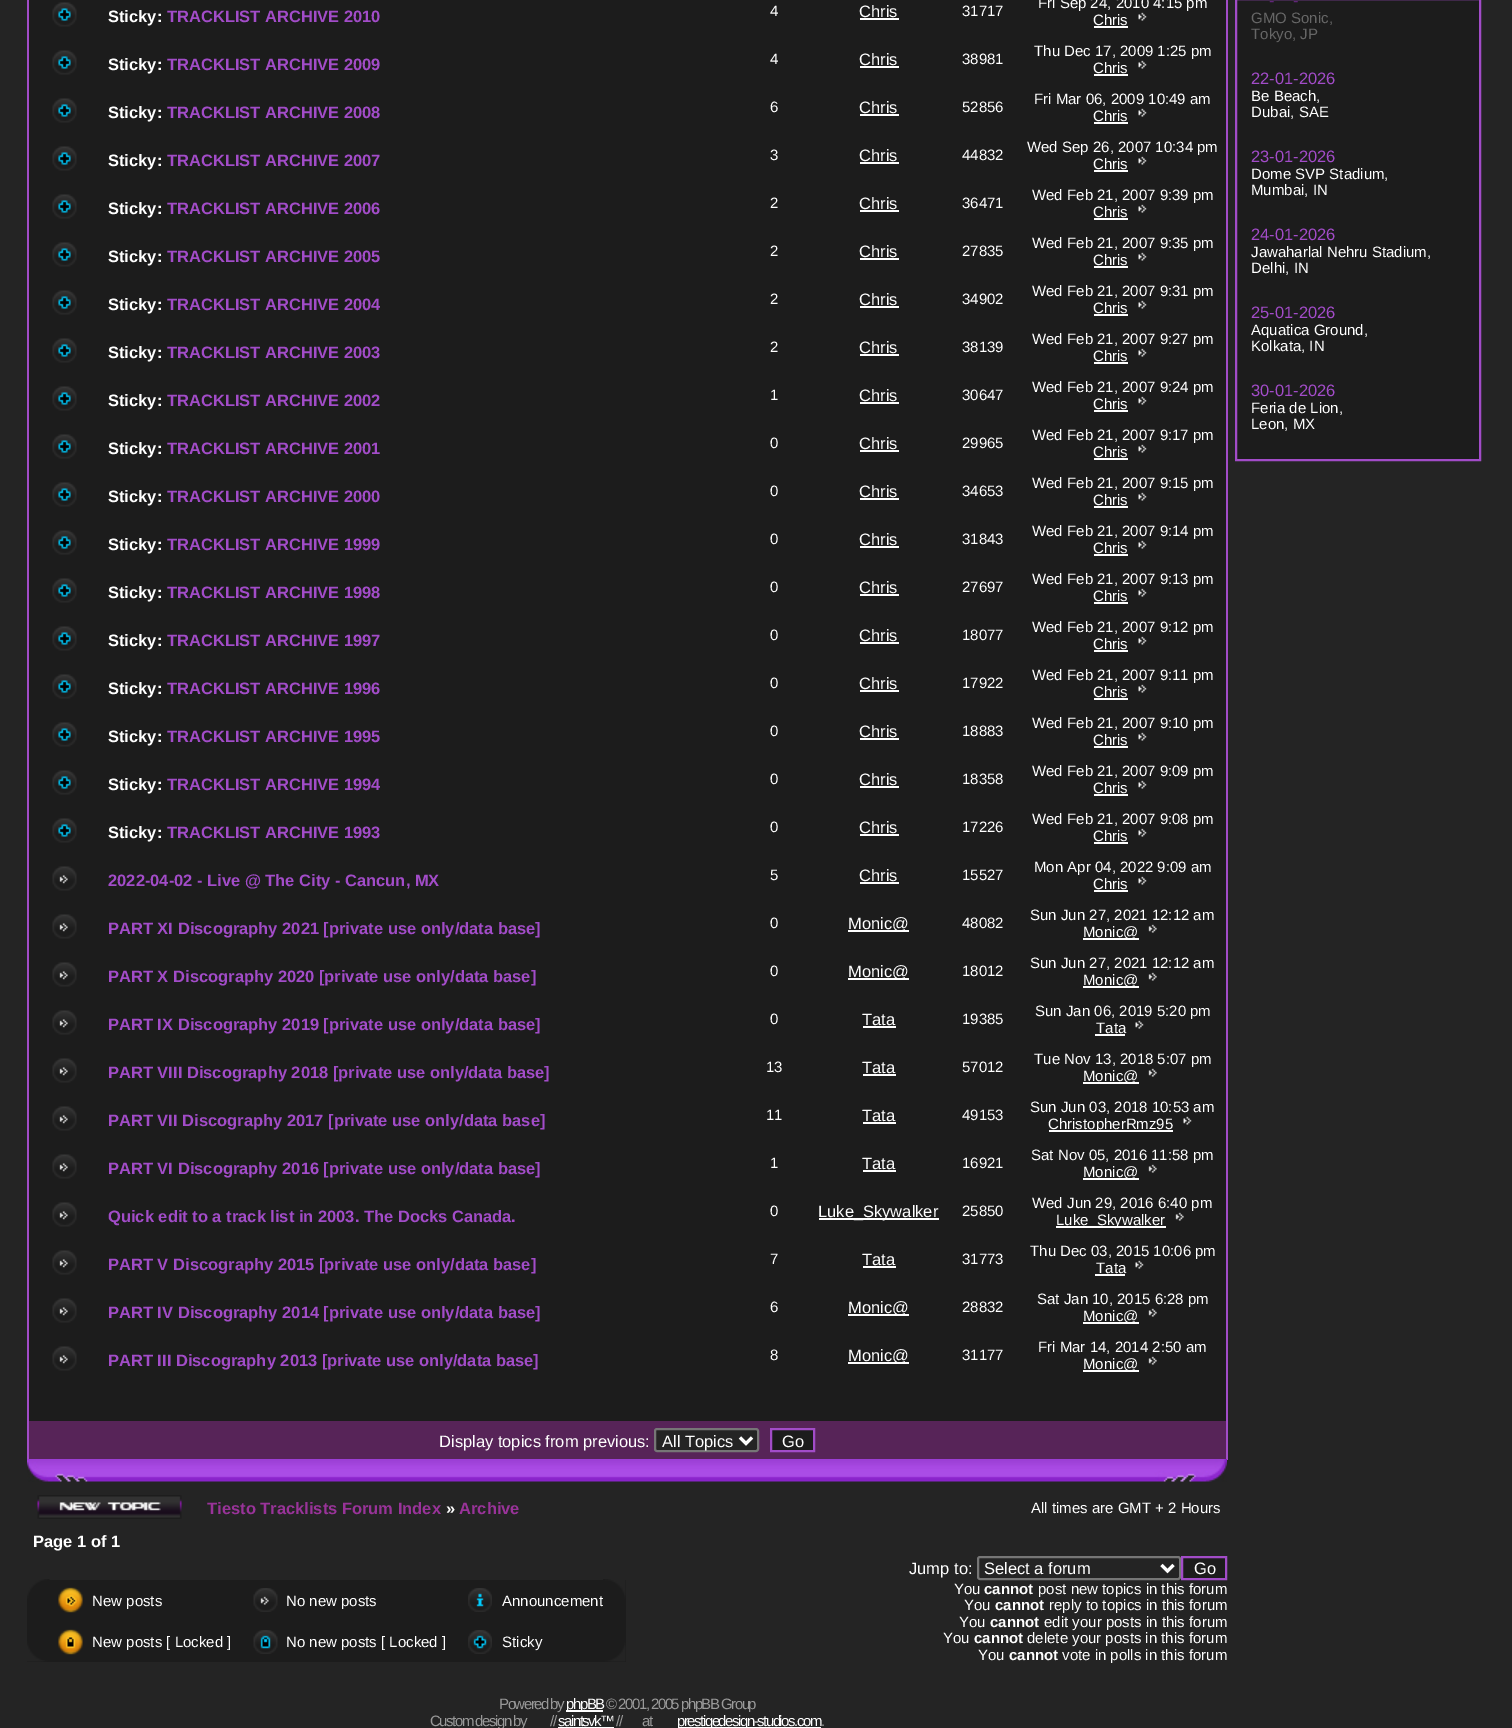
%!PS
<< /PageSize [1512 1728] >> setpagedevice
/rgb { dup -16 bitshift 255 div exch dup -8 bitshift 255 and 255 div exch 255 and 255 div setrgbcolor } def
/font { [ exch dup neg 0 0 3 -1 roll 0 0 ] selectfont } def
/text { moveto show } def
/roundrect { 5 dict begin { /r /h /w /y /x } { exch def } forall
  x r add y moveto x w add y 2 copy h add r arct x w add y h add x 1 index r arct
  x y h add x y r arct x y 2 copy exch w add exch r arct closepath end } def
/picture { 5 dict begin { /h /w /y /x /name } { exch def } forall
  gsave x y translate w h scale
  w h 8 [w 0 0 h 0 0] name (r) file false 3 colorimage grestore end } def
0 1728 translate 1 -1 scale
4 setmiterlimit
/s1 { /LiberationSans-Bold 16.5 font 16#FFFFFF rgb } def
/s2 { /LiberationSans-Bold 16.5 font 16#A24CC8 rgb } def
/s3 { /LiberationSans-Regular 15 font 16#FFFFFF rgb } def
/s4 { /LiberationSans-Regular 16.5 font 16#FFFFFF rgb } def
/s5 { /LiberationSans-Bold 16.5 font 16#993399 rgb } def
/s6 { /LiberationSans-Bold 15 font 16#FFFFFF rgb } def
/s7 { /LiberationSans-Regular 16.5 font 16#612679 rgb } def
/s8 { /LiberationSans-Regular 15 font 16#666666 rgb } def
/s9 { /LiberationSans-Regular 16.5 font 16#A24CC8 rgb } def
16#242424 rgb
0 0 1512 1728 rectfill
16#A24CC8 rgb
1226 0 2 1460 rectfill
27 0 2 1460 rectfill
16#1C1C1C rgb
29 0 1197 35 rectfill
(pic1.raw) 52 2 25 25 picture
s1
(Sticky:) 108 22 text
s2
(TRACKLIST ARCHIVE 2010) 167 22 text
s3
(4) 770 16 text
s4
(Chris) 859 17 text
860 18 39 2 rectfill
s3
(31717) 962 16 text
(Fri Sep 24, 2010 4:15 pm) 1038 8 text
(Chris) 1093 25 text
1094 26 34 2 rectfill
(pic2.raw) 1138 12 9 9 picture
16#1C1C1C rgb
29 35 1197 48 rectfill
(pic1.raw) 52 50 25 25 picture
s1
(Sticky:) 108 70 text
s2
(TRACKLIST ARCHIVE 2009) 167 70 text
s3
(4) 770 64 text
s4
(Chris) 859 65 text
860 66 39 2 rectfill
s3
(38981) 962 64 text
(Thu Dec 17, 2009 1:25 pm) 1034 56 text
(Chris) 1093 73 text
1094 74 34 2 rectfill
(pic2.raw) 1138 60 9 9 picture
16#1C1C1C rgb
29 83 1197 48 rectfill
(pic1.raw) 52 98 25 25 picture
s1
(Sticky:) 108 118 text
s2
(TRACKLIST ARCHIVE 2008) 167 118 text
s3
(6) 770 112 text
s4
(Chris) 859 113 text
860 114 39 2 rectfill
s3
(52856) 962 112 text
(Fri Mar 06, 2009 10:49 am) 1034 104 text
(Chris) 1093 121 text
1094 122 34 2 rectfill
(pic2.raw) 1138 108 9 9 picture
16#1C1C1C rgb
29 131 1197 48 rectfill
(pic1.raw) 52 146 25 25 picture
s1
(Sticky:) 108 166 text
s2
(TRACKLIST ARCHIVE 2007) 167 166 text
s3
(3) 770 160 text
s4
(Chris) 859 161 text
860 162 39 2 rectfill
s3
(44832) 962 160 text
(Wed Sep 26, 2007 10:34 pm) 1027 152 text
(Chris) 1093 169 text
1094 170 34 2 rectfill
(pic2.raw) 1138 156 9 9 picture
16#1C1C1C rgb
29 179 1197 48 rectfill
(pic1.raw) 52 194 25 25 picture
s1
(Sticky:) 108 214 text
s2
(TRACKLIST ARCHIVE 2006) 167 214 text
s3
(2) 770 208 text
s4
(Chris) 859 209 text
860 210 39 2 rectfill
s3
(36471) 962 208 text
(Wed Feb 21, 2007 9:39 pm) 1032 200 text
(Chris) 1093 217 text
1094 218 34 2 rectfill
(pic2.raw) 1138 204 9 9 picture
16#1C1C1C rgb
29 227 1197 48 rectfill
(pic1.raw) 52 242 25 25 picture
s1
(Sticky:) 108 262 text
s2
(TRACKLIST ARCHIVE 2005) 167 262 text
s3
(2) 770 256 text
s4
(Chris) 859 257 text
860 258 39 2 rectfill
s3
(27835) 962 256 text
(Wed Feb 21, 2007 9:35 pm) 1032 248 text
(Chris) 1093 265 text
1094 266 34 2 rectfill
(pic2.raw) 1138 252 9 9 picture
16#1C1C1C rgb
29 275 1197 48 rectfill
(pic1.raw) 52 290 25 25 picture
s1
(Sticky:) 108 310 text
s2
(TRACKLIST ARCHIVE 2004) 167 310 text
s3
(2) 770 304 text
s4
(Chris) 859 305 text
860 306 39 2 rectfill
s3
(34902) 962 304 text
(Wed Feb 21, 2007 9:31 pm) 1032 296 text
(Chris) 1093 313 text
1094 314 34 2 rectfill
(pic2.raw) 1138 300 9 9 picture
16#1C1C1C rgb
29 323 1197 48 rectfill
(pic1.raw) 52 338 25 25 picture
s1
(Sticky:) 108 358 text
s2
(TRACKLIST ARCHIVE 2003) 167 358 text
s3
(2) 770 352 text
s4
(Chris) 859 353 text
860 354 39 2 rectfill
s3
(38139) 962 352 text
(Wed Feb 21, 2007 9:27 pm) 1032 344 text
(Chris) 1093 361 text
1094 362 34 2 rectfill
(pic2.raw) 1138 348 9 9 picture
16#1C1C1C rgb
29 371 1197 48 rectfill
(pic1.raw) 52 386 25 25 picture
s1
(Sticky:) 108 406 text
s2
(TRACKLIST ARCHIVE 2002) 167 406 text
s3
(1) 770 400 text
s4
(Chris) 859 401 text
860 402 39 2 rectfill
s3
(30647) 962 400 text
(Wed Feb 21, 2007 9:24 pm) 1032 392 text
(Chris) 1093 409 text
1094 410 34 2 rectfill
(pic2.raw) 1138 396 9 9 picture
16#1C1C1C rgb
29 419 1197 48 rectfill
(pic1.raw) 52 434 25 25 picture
s1
(Sticky:) 108 454 text
s2
(TRACKLIST ARCHIVE 2001) 167 454 text
s3
(0) 770 448 text
s4
(Chris) 859 449 text
860 450 39 2 rectfill
s3
(29965) 962 448 text
(Wed Feb 21, 2007 9:17 pm) 1032 440 text
(Chris) 1093 457 text
1094 458 34 2 rectfill
(pic2.raw) 1138 444 9 9 picture
16#1C1C1C rgb
29 467 1197 48 rectfill
(pic1.raw) 52 482 25 25 picture
s1
(Sticky:) 108 502 text
s2
(TRACKLIST ARCHIVE 2000) 167 502 text
s3
(0) 770 496 text
s4
(Chris) 859 497 text
860 498 39 2 rectfill
s3
(34653) 962 496 text
(Wed Feb 21, 2007 9:15 pm) 1032 488 text
(Chris) 1093 505 text
1094 506 34 2 rectfill
(pic2.raw) 1138 492 9 9 picture
16#1C1C1C rgb
29 515 1197 48 rectfill
(pic1.raw) 52 530 25 25 picture
s1
(Sticky:) 108 550 text
s2
(TRACKLIST ARCHIVE 1999) 167 550 text
s3
(0) 770 544 text
s4
(Chris) 859 545 text
860 546 39 2 rectfill
s3
(31843) 962 544 text
(Wed Feb 21, 2007 9:14 pm) 1032 536 text
(Chris) 1093 553 text
1094 554 34 2 rectfill
(pic2.raw) 1138 540 9 9 picture
16#1C1C1C rgb
29 563 1197 48 rectfill
(pic1.raw) 52 578 25 25 picture
s1
(Sticky:) 108 598 text
s2
(TRACKLIST ARCHIVE 1998) 167 598 text
s3
(0) 770 592 text
s4
(Chris) 859 593 text
860 594 39 2 rectfill
s3
(27697) 962 592 text
(Wed Feb 21, 2007 9:13 pm) 1032 584 text
(Chris) 1093 601 text
1094 602 34 2 rectfill
(pic2.raw) 1138 588 9 9 picture
16#1C1C1C rgb
29 611 1197 48 rectfill
(pic1.raw) 52 626 25 25 picture
s1
(Sticky:) 108 646 text
s2
(TRACKLIST ARCHIVE 1997) 167 646 text
s3
(0) 770 640 text
s4
(Chris) 859 641 text
860 642 39 2 rectfill
s3
(18077) 962 640 text
(Wed Feb 21, 2007 9:12 pm) 1032 632 text
(Chris) 1093 649 text
1094 650 34 2 rectfill
(pic2.raw) 1138 636 9 9 picture
16#1C1C1C rgb
29 659 1197 48 rectfill
(pic1.raw) 52 674 25 25 picture
s1
(Sticky:) 108 694 text
s2
(TRACKLIST ARCHIVE 1996) 167 694 text
s3
(0) 770 688 text
s4
(Chris) 859 689 text
860 690 39 2 rectfill
s3
(17922) 962 688 text
(Wed Feb 21, 2007 9:11 pm) 1032 680 text
(Chris) 1093 697 text
1094 698 34 2 rectfill
(pic2.raw) 1138 684 9 9 picture
16#1C1C1C rgb
29 707 1197 48 rectfill
(pic1.raw) 52 722 25 25 picture
s1
(Sticky:) 108 742 text
s2
(TRACKLIST ARCHIVE 1995) 167 742 text
s3
(0) 770 736 text
s4
(Chris) 859 737 text
860 738 39 2 rectfill
s3
(18883) 962 736 text
(Wed Feb 21, 2007 9:10 pm) 1032 728 text
(Chris) 1093 745 text
1094 746 34 2 rectfill
(pic2.raw) 1138 732 9 9 picture
16#1C1C1C rgb
29 755 1197 48 rectfill
(pic1.raw) 52 770 25 25 picture
s1
(Sticky:) 108 790 text
s2
(TRACKLIST ARCHIVE 1994) 167 790 text
s3
(0) 770 784 text
s4
(Chris) 859 785 text
860 786 39 2 rectfill
s3
(18358) 962 784 text
(Wed Feb 21, 2007 9:09 pm) 1032 776 text
(Chris) 1093 793 text
1094 794 34 2 rectfill
(pic2.raw) 1138 780 9 9 picture
16#1C1C1C rgb
29 803 1197 48 rectfill
(pic1.raw) 52 818 25 25 picture
s1
(Sticky:) 108 838 text
s2
(TRACKLIST ARCHIVE 1993) 167 838 text
s3
(0) 770 832 text
s4
(Chris) 859 833 text
860 834 39 2 rectfill
s3
(17226) 962 832 text
(Wed Feb 21, 2007 9:08 pm) 1032 824 text
(Chris) 1093 841 text
1094 842 34 2 rectfill
(pic2.raw) 1138 828 9 9 picture
16#1C1C1C rgb
29 851 1197 48 rectfill
(pic3.raw) 52 866 25 25 picture
s2
(2022-04-02 - Live @ The City - Cancun, MX) 108 886 text
s3
(5) 770 880 text
s4
(Chris) 859 881 text
860 882 39 2 rectfill
s3
(15527) 962 880 text
(Mon Apr 04, 2022 9:09 am) 1034 872 text
(Chris) 1093 889 text
1094 890 34 2 rectfill
(pic2.raw) 1138 876 9 9 picture
16#1C1C1C rgb
29 899 1197 48 rectfill
(pic3.raw) 52 914 25 25 picture
s2
(PART XI Discography 2021 [private use only/data base]) 108 934 text
s3
(0) 770 928 text
848 930 61 2 rectfill
s4
(Monic@) 848 929 text
s3
(48082) 962 928 text
(Sun Jun 27, 2021 12:12 am) 1030 920 text
1083 938 56 2 rectfill
(Monic@) 1083 937 text
(pic4.raw) 1148 924 9 9 picture
16#1C1C1C rgb
29 947 1197 48 rectfill
(pic3.raw) 52 962 25 25 picture
s2
(PART X Discography 2020 [private use only/data base]) 108 982 text
s3
(0) 770 976 text
848 978 61 2 rectfill
s4
(Monic@) 848 977 text
s3
(18012) 962 976 text
(Sun Jun 27, 2021 12:12 am) 1030 968 text
1083 986 56 2 rectfill
(Monic@) 1083 985 text
(pic4.raw) 1148 972 9 9 picture
16#1C1C1C rgb
29 995 1197 48 rectfill
(pic3.raw) 52 1010 25 25 picture
s2
(PART IX Discography 2019 [private use only/data base]) 108 1030 text
s3
(0) 770 1024 text
s4
(Tata) 862 1025 text
863 1026 33 2 rectfill
s3
(19385) 962 1024 text
(Sun Jan 06, 2019 5:20 pm) 1035 1016 text
(Tata) 1096 1033 text
1095 1034 30 2 rectfill
(pic2.raw) 1135 1020 9 9 picture
16#1C1C1C rgb
29 1043 1197 48 rectfill
(pic3.raw) 52 1058 25 25 picture
s2
(PART VIII Discography 2018 [private use only/data base]) 108 1078 text
s3
(13) 766 1072 text
s4
(Tata) 862 1073 text
863 1074 33 2 rectfill
s3
(57012) 962 1072 text
(Tue Nov 13, 2018 5:07 pm) 1034 1064 text
1083 1082 56 2 rectfill
(Monic@) 1083 1081 text
(pic4.raw) 1148 1068 9 9 picture
16#1C1C1C rgb
29 1091 1197 48 rectfill
(pic3.raw) 52 1106 25 25 picture
s2
(PART VII Discography 2017 [private use only/data base]) 108 1126 text
s3
(11) 766 1120 text
s4
(Tata) 862 1121 text
863 1122 33 2 rectfill
s3
(49153) 962 1120 text
(Sun Jun 03, 2018 10:53 am) 1030 1112 text
1049 1130 124 2 rectfill
(ChristopherRmz95) 1048 1129 text
(pic2.raw) 1183 1116 9 9 picture
16#1C1C1C rgb
29 1139 1197 48 rectfill
(pic3.raw) 52 1154 25 25 picture
s2
(PART VI Discography 2016 [private use only/data base]) 108 1174 text
s3
(1) 770 1168 text
s4
(Tata) 862 1169 text
863 1170 33 2 rectfill
s3
(16921) 962 1168 text
(Sat Nov 05, 2016 11:58 pm) 1031 1160 text
1083 1178 56 2 rectfill
(Monic@) 1083 1177 text
(pic4.raw) 1148 1164 9 9 picture
16#1C1C1C rgb
29 1187 1197 48 rectfill
(pic3.raw) 52 1202 25 25 picture
s2
(Quick edit to a track list in 2003. The Docks Canada.) 108 1222 text
s3
(0) 770 1216 text
819 1218 120 2 rectfill
s4
(Luke_Skywalker) 818 1217 text
s3
(25850) 962 1216 text
(Wed Jun 29, 2016 6:40 pm) 1032 1208 text
1056 1226 110 2 rectfill
(Luke_Skywalker) 1056 1225 text
(pic4.raw) 1175 1212 9 9 picture
16#1C1C1C rgb
29 1235 1197 48 rectfill
(pic3.raw) 52 1250 25 25 picture
s2
(PART V Discography 2015 [private use only/data base]) 108 1270 text
s3
(7) 770 1264 text
s4
(Tata) 862 1265 text
863 1266 33 2 rectfill
s3
(31773) 962 1264 text
(Thu Dec 03, 2015 10:06 pm) 1030 1256 text
(Tata) 1096 1273 text
1095 1274 30 2 rectfill
(pic2.raw) 1135 1260 9 9 picture
16#1C1C1C rgb
29 1283 1197 48 rectfill
(pic3.raw) 52 1298 25 25 picture
s2
(PART IV Discography 2014 [private use only/data base]) 108 1318 text
s3
(6) 770 1312 text
848 1314 61 2 rectfill
s4
(Monic@) 848 1313 text
s3
(28832) 962 1312 text
(Sat Jan 10, 2015 6:28 pm) 1037 1304 text
1083 1322 56 2 rectfill
(Monic@) 1083 1321 text
(pic4.raw) 1148 1308 9 9 picture
16#1C1C1C rgb
29 1331 1197 90 rectfill
(pic3.raw) 52 1346 25 25 picture
s2
(PART III Discography 2013 [private use only/data base]) 108 1366 text
s3
(8) 770 1360 text
848 1362 61 2 rectfill
s4
(Monic@) 848 1361 text
s3
(31177) 962 1360 text
(Fri Mar 14, 2014 2:50 am) 1038 1352 text
1083 1370 56 2 rectfill
(Monic@) 1083 1369 text
(pic4.raw) 1148 1356 9 9 picture
16#572458 rgb
29 1421 1197 38 rectfill
s4
(Display topics from previous:) 439 1447 text
16#242424 rgb
655 1429 103 22 2 roundrect gsave fill grestore
16#767676 rgb
2 setlinewidth
stroke
16#FFFFFF rgb
3 setlinewidth
740 1437.5 moveto 746 1443.5 lineto 752 1437.5 lineto stroke
(All Topics) 662 1447 text
16#1C1C1C rgb
771 1429 moveto 814 1429 lineto 814 1451 lineto 771 1451 lineto closepath gsave fill grestore
16#A24CC8 rgb
2 setlinewidth
stroke
s4
(Go) 782 1447 text
(pic5.raw) 27 1459 1200 23 picture
(pic6.raw) 37 1495 145 24 picture
s5
(Tiesto Tracklists Forum Index) 207 1514 text
s1
(») 446 1514 text
s5
(Archive) 459 1514 text
s3
(All times are GMT + 2 Hours) 1031 1513 text
s1
(Page 1 of 1) 33 1547 text
s4
(Jump to:) 909 1574 text
16#767676 rgb
978 1557 202 22 2 roundrect stroke
16#FFFFFF rgb
3 setlinewidth
1161.5 1565 moveto 1167.5 1571 lineto 1173.5 1565 lineto stroke
(Select a forum) 984 1574 text
16#1C1C1C rgb
1182 1557 moveto 1226 1557 lineto 1226 1579 lineto 1182 1579 lineto closepath gsave fill grestore
16#A24CC8 rgb
2 setlinewidth
stroke
s4
(Go) 1194 1574 text
16#1C1C1C rgb
27 1580 599 82 rectfill
(pic7.raw) 27 1579 23 83 picture
(pic8.raw) 58 1587 25 26 picture
s3
(New posts) 92 1606 text
(pic9.raw) 253 1588 25 24 picture
(No new posts) 286 1606 text
(pic10.raw) 468 1588 24 24 picture
(Announcement) 502 1606 text
(pic11.raw) 603 1579 23 83 picture
(pic12.raw) 58 1629 25 26 picture
(New posts [ Locked ]) 92 1647 text
(pic13.raw) 253 1630 25 24 picture
(No new posts [ Locked ]) 286 1647 text
(pic14.raw) 468 1630 24 24 picture
(Sticky) 502 1647 text
(You) 954 1594 text
s6
(cannot) 984 1594 text
s3
(post new topics in this forum) 1038 1594 text
(You) 964 1610 text
s6
(cannot) 995 1610 text
s3
(reply to topics in this forum) 1049 1610 text
(You) 959 1627 text
s6
(cannot) 990 1627 text
s3
(edit your posts in this forum) 1044 1627 text
(You) 943 1643 text
s6
(cannot) 974 1643 text
s3
(delete your posts in this forum) 1027 1643 text
(You) 978 1660 text
s6
(cannot) 1009 1660 text
s3
(vote in polls in this forum) 1062 1660 text
16#999999 rgb
499 1709 moveto -1.5 0 (Powered by) ashow
16#FFFFFF rgb
566 1710 37 2 rectfill
566 1709 moveto -1.5 0 (phpBB) ashow
16#999999 rgb
606 1709 moveto -1.5 0 (© 2001, 2005 phpBB Group) ashow
430 1726 moveto -1.5 0 (Custom design by) ashow
550 1726 moveto -1.5 0 (//) ashow
16#FFFFFF rgb
558 1726 moveto -1.5 0 (saintsvk™) ashow
558 1727 56 1 rectfill
16#999999 rgb
616 1726 moveto -1.5 0 (//) ashow
642 1726 moveto -1.5 0 (at) ashow
16#FFFFFF rgb
678 1727 143 1 rectfill
677 1726 moveto -1.5 0 (prestigedesign-studios.com) ashow
16#999999 rgb
821 1726 moveto -1.5 0 (.) ashow
16#1C1C1C rgb
1236 -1 moveto 1480 -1 lineto 1480 460 lineto 1236 460 lineto closepath gsave fill grestore
16#A24CC8 rgb
stroke
s7
(-) 1269 6 text
(-) 1293 6 text
s8
(GMO Sonic,) 1251 23 text
(Tokyo, JP) 1251 39 text
s9
(22-01-2026) 1251 84 text
s3
(Be Beach,) 1251 101 text
(Dubai, SAE) 1251 117 text
s9
(23-01-2026) 1251 162 text
s3
(Dome SVP Stadium,) 1251 179 text
(Mumbai, IN) 1251 195 text
s9
(24-01-2026) 1251 240 text
s3
(Jawaharlal Nehru Stadium,) 1251 257 text
(Delhi, IN) 1251 273 text
s9
(25-01-2026) 1251 318 text
s3
(Aquatica Ground,) 1251 335 text
(Kolkata, IN) 1251 351 text
s9
(30-01-2026) 1251 396 text
s3
(Feria de Lion,) 1251 413 text
(Leon, MX) 1251 429 text
showpage
